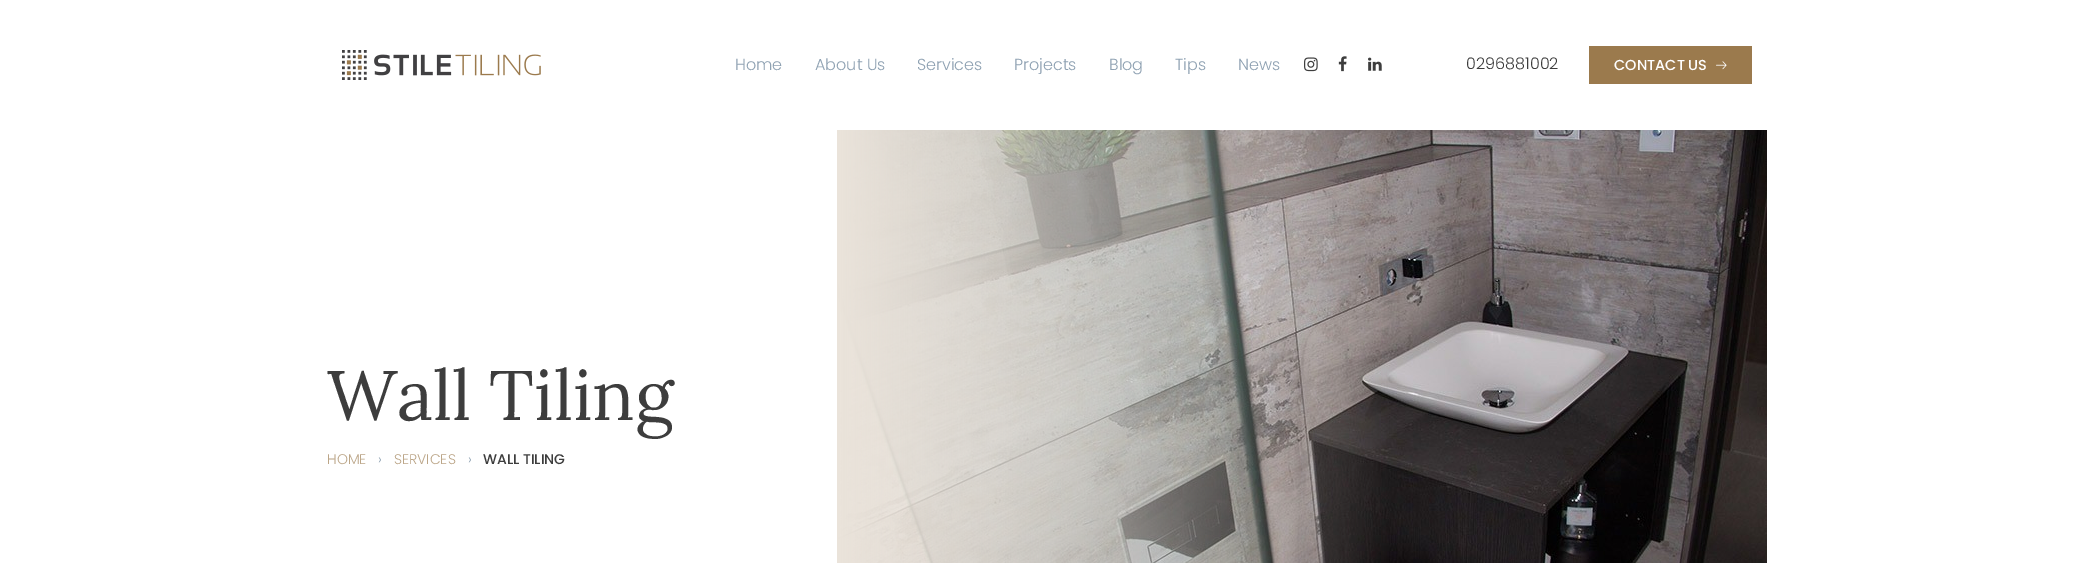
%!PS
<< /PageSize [2094 563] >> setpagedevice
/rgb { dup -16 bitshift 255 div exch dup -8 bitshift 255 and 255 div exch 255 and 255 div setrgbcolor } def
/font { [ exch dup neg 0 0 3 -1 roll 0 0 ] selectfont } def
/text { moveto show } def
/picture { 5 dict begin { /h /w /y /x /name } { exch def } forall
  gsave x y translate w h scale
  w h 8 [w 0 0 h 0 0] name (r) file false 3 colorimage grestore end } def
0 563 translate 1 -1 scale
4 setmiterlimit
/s1 { /Poppins-Light 16 font 16#8EA1B2 rgb } def
/s2 { /Poppins-Light 16 font 16#3D3D3D rgb } def
/s3 { /Poppins-Medium 14.5 font 16#FFFFFF rgb } def
/s4 { /Lora-Regular 70 font 16#3D3D3D rgb } def
/s5 { /Poppins-Light 14 font 16#BBA587 rgb } def
/s6 { /Poppins-Light 14 font 16#8EA1B2 rgb } def
/s7 { /Poppins-Medium 14 font 16#3D3D3D rgb } def
16#FFFFFF rgb
0 0 2094 563 rectfill
(pic1.raw) 342 50 199 30 picture
s1
(Home) 735 70 text
(About Us) 815 70 text
(Services) 917 70 text
(Projects) 1014 70 text
(Blog) 1109 70 text
(Tips) 1175 70 text
(News) 1238 70 text
(pic2.raw) 1304 57 14 15 picture
(pic3.raw) 1338 56 9 16 picture
(pic4.raw) 1368 57 14 14 picture
s2
(0296881002) 1466 69 text
16#9B7A4D rgb
1589 46 163 38 rectfill
s3
(CONTACT US) 1614 70 text
(pic5.raw) 1716 61 11 9 picture
s4
(Wall Tiling) 327 420 text
s5
(HOME) 327 464 text
s6
(›) 378 464 text
s5
(SERVICES) 394 464 text
s6
(›) 468 464 text
s7
(WALL TILING) 483 464 text
(pic6.raw) 837 130 930 433 picture
showpage
